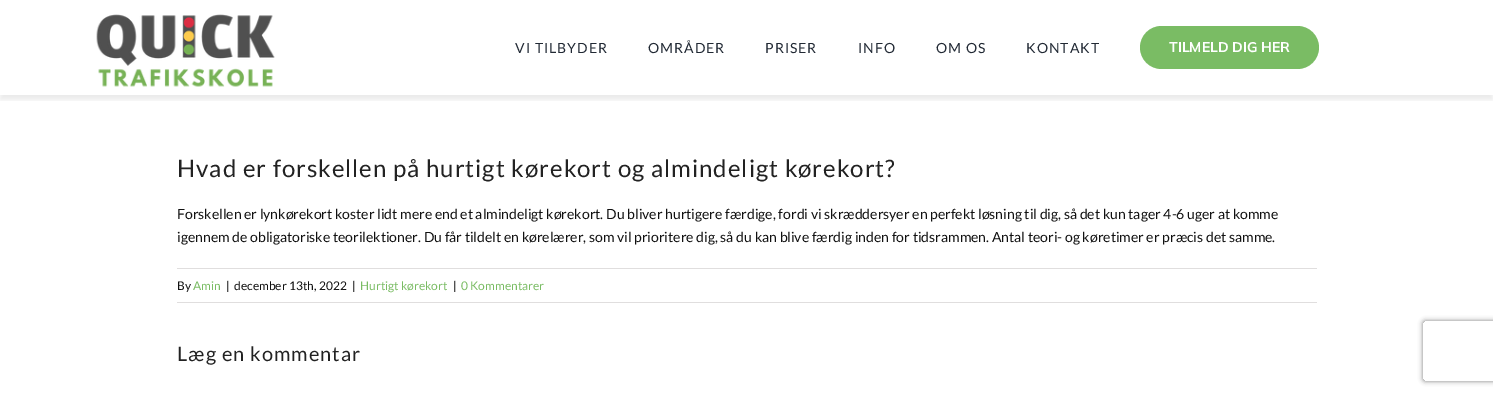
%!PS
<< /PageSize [1493 395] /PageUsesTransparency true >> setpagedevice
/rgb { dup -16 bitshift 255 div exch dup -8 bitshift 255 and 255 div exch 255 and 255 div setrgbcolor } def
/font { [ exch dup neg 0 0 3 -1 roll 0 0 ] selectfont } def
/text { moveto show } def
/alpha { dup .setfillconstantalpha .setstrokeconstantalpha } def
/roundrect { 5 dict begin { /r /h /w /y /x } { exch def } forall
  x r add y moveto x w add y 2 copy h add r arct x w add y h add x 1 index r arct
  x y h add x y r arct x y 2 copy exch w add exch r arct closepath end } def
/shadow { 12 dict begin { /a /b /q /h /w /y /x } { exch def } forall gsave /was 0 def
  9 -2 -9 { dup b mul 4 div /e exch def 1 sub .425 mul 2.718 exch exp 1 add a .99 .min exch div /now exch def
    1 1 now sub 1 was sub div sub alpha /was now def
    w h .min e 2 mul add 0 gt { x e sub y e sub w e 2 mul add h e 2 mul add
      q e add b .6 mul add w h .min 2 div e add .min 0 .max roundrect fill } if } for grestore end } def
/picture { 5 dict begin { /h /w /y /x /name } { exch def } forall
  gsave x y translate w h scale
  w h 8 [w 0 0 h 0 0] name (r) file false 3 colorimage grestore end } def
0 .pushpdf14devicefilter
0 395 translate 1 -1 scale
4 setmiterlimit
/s1 { /Mulish-ExtraLight 14 font 16#FFFFFF rgb } def
/s2 { /Lato-Regular 14 font 16#111111 rgb } def
/s3 { /Lato-Regular 12 font 16#111111 rgb } def
/s4 { /Lato-Regular 12 font 16#7ABC64 rgb } def
16#FFFFFF rgb
0 0 1493 395 rectfill
gsave
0 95 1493 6 rectclip
16#000000 rgb
0 5 1493 95 0 2.5 0.07 shadow
grestore
(pic1.raw) 96 14 179 73 picture
/Lato-Regular 14 font
16#212934 rgb
515 53 moveto 1 0 (VI TILBYDER) ashow
648 53 moveto 1 0 (OMRÅDER) ashow
765 53 moveto 1 0 (PRISER) ashow
858 53 moveto 1 0 (INFO) ashow
936 53 moveto 1 0 (OM OS) ashow
1026 53 moveto 1 0 (KONTAKT) ashow
16#7ABC64 rgb
1140 26 179 43 21.5 roundrect fill
s1
(TILMELD DIG HER) 1169 52 text
/Lato-Regular 24 font
16#222222 rgb
177 177 moveto 1 0 (Hvad er forskellen på hurtigt kørekort og almindeligt kørekort?) ashow
s2
(Forskellen er lynkørekort koster lidt mere end et almindeligt kørekort. Du bliver hurtigere færdige, fordi vi skræddersyer en perfekt løsning til dig, så det kun tager 4-6 uger at komme) 177 219 text
(igennem de obligatoriske teorilektioner. Du får tildelt en kørelærer, som vil prioritere dig, så du kan blive færdig inden for tidsrammen. Antal teori- og køretimer er præcis det samme.) 177 242 text
16#E0DEDE rgb
177 268 1140 1 rectfill
177 302 1140 1 rectfill
s3
(By) 177 290 text
s4
(Amin) 193 290 text
s3
(|) 226 290 text
(december 13th, 2022) 234 290 text
(|) 352 290 text
s4
(Hurtigt kørekort) 360 290 text
s3
(|) 453 290 text
s4
(0 Kommentarer) 461 290 text
/Lato-Regular 20 font
16#222222 rgb
177 361 moveto 1 0 (Læg en kommentar) ashow
gsave
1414 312 moveto 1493 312 lineto 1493 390 lineto 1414 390 lineto closepath 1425 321 moveto 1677 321 lineto 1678 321 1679 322 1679 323 curveto 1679 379 lineto 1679 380 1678 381 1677 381 curveto 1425 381 lineto 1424 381 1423 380 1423 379 curveto 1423 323 lineto 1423 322 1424 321 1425 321 curveto closepath eoclip newpath
16#808080 rgb
1423 321 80 60 2 2.5 1 shadow
grestore
.poppdf14devicefilter showpage
